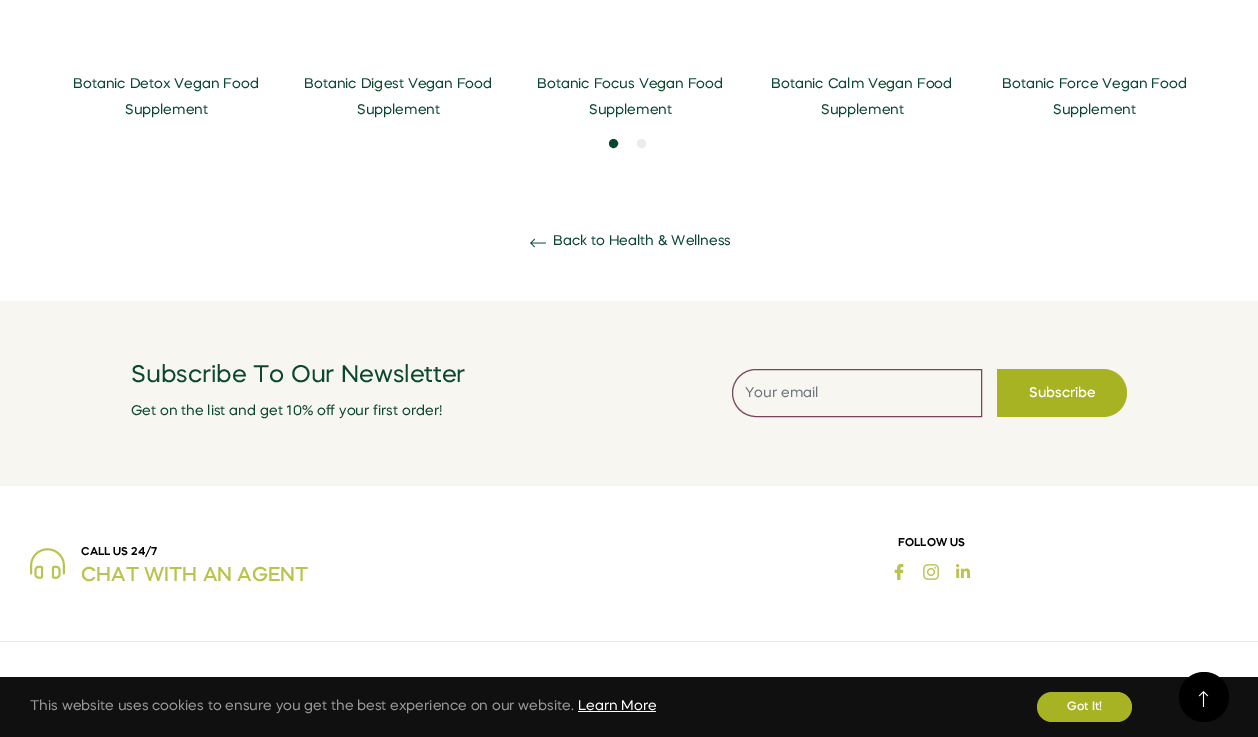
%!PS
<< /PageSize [1258 737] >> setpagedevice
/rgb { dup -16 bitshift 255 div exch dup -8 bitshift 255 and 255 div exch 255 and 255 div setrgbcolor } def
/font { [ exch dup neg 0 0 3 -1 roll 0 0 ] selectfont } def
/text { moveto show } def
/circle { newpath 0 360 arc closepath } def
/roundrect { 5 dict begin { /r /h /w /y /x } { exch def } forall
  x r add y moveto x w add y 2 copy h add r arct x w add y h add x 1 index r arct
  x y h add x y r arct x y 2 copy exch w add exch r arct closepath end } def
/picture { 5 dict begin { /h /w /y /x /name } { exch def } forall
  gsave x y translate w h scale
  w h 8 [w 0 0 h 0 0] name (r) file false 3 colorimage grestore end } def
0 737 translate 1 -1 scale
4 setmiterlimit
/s1 { /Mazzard-Regular 14 font 16#0A472E rgb } def
/s2 { /Mazzard-Regular 24 font 16#0A472E rgb } def
/s3 { /Mazzard-Regular 14 font 16#6C757D rgb } def
/s4 { /Mazzard-Medium 14 font 16#FFFFFF rgb } def
/s5 { /Mazzard-SemiBold 11.25 font 16#000000 rgb } def
/s6 { /Mazzard-Medium 20 font 16#BAC34E rgb } def
/s7 { /Mazzard-Regular 14 font 16#999999 rgb } def
/s8 { /Mazzard-Regular 14 font 16#FFFFFF rgb } def
/s9 { /Mazzard-Medium 12 font 16#FFFFFF rgb } def
16#FFFFFF rgb
0 0 1258 737 rectfill
s1
(Botanic Detox Vegan Food) 73 88 text
(Supplement) 125 114 text
(Botanic Digest Vegan Food) 304 88 text
(Supplement) 357 114 text
(Botanic Focus Vegan Food) 537 88 text
(Supplement) 589 114 text
(Botanic Calm Vegan Food) 771 88 text
(Supplement) 821 114 text
(Botanic Force Vegan Food) 1002 88 text
(Supplement) 1053 114 text
613.5 143.5 4 circle gsave fill grestore
stroke
16#EBEBEB rgb
641.5 143.5 4 circle gsave fill grestore
stroke
(pic1.raw) 530 238 16 10 picture
s1
(Back to Health & Wellness) 553 245 text
16#F7F6F0 rgb
0 301 1258 184 rectfill
s2
(Subscribe To Our Newsletter) 131 382 text
s1
(Get on the list and get 10% off your first order!) 131 415 text
16#79425F rgb
756 369.5 moveto 981.5 369.5 lineto 981.5 416.5 lineto 756 416.5 lineto 743 416.5 732.5 406 732.5 393 curveto 732.5 380 743 369.5 756 369.5 curveto closepath stroke
s3
(Your email) 745 397 text
16#A8B324 rgb
997 369 moveto 1103 369 lineto 1116.5 369 1127 379.5 1127 393 curveto 1127 406.5 1116.5 417 1103 417 curveto 997 417 lineto closepath fill
s4
(Subscribe) 1029 397 text
16#FCF4EB rgb
0 485 1258 1 rectfill
16#E9E9E9 rgb
0 641 1258 1 rectfill
s5
(FOLLOW US) 898 546 text
(pic2.raw) 894 564 10 16 picture
(pic3.raw) 923 564 16 16 picture
(pic4.raw) 956 564 14 14 picture
(pic5.raw) 30 548 35 31 picture
(CALL US 24/7) 81 555 text
s6
(CHAT WITH AN AGENT) 81 581 text
16#101010 rgb
0 677 1258 60 rectfill
s7
(This website uses cookies to ensure you get the best experience on our website.) 30 710 text
s8
(Learn More) 578 710 text
578 711 78 1 rectfill
16#A8B324 rgb
1037 692 95 30 15 roundrect fill
s9
(Got It!) 1067 710 text
16#000000 rgb
1204 697 25 circle fill
(pic6.raw) 1198 691 11 16 picture
showpage
